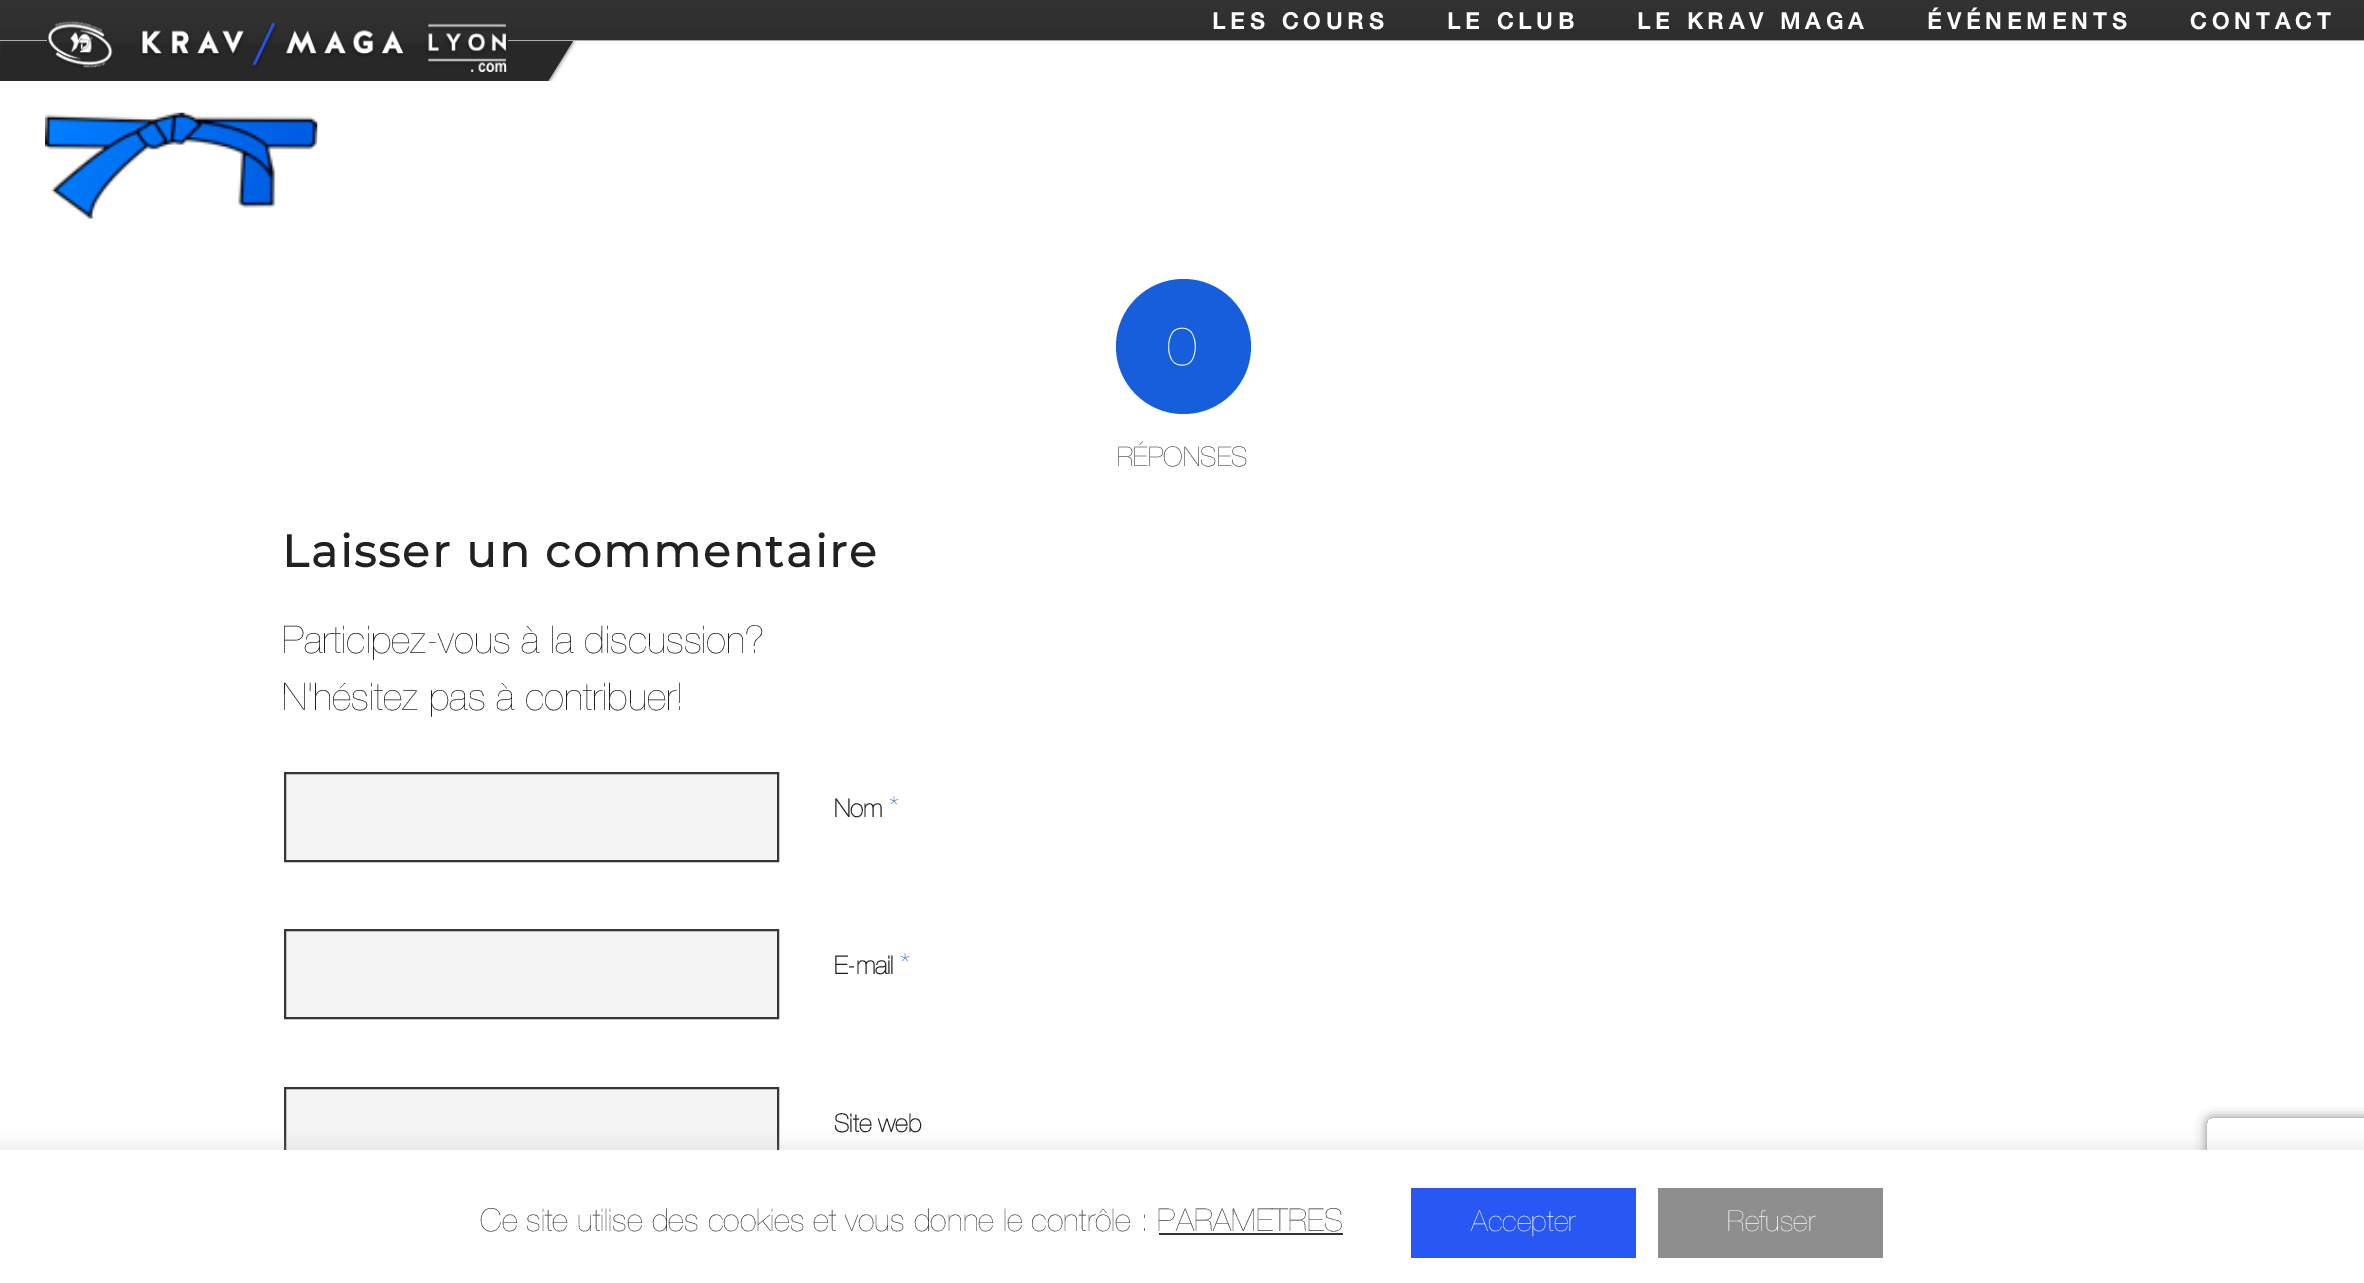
%!PS
<< /PageSize [2364 1283] /PageUsesTransparency true >> setpagedevice
/rgb { dup -16 bitshift 255 div exch dup -8 bitshift 255 and 255 div exch 255 and 255 div setrgbcolor } def
/font { [ exch dup neg 0 0 3 -1 roll 0 0 ] selectfont } def
/text { moveto show } def
/alpha { dup .setfillconstantalpha .setstrokeconstantalpha } def
/circle { newpath 0 360 arc closepath } def
/roundrect { 5 dict begin { /r /h /w /y /x } { exch def } forall
  x r add y moveto x w add y 2 copy h add r arct x w add y h add x 1 index r arct
  x y h add x y r arct x y 2 copy exch w add exch r arct closepath end } def
/shadow { 12 dict begin { /a /b /q /h /w /y /x } { exch def } forall gsave /was 0 def
  9 -2 -9 { dup b mul 4 div /e exch def 1 sub .425 mul 2.718 exch exp 1 add a .99 .min exch div /now exch def
    1 1 now sub 1 was sub div sub alpha /was now def
    w h .min e 2 mul add 0 gt { x e sub y e sub w e 2 mul add h e 2 mul add
      q e add b .6 mul add w h .min 2 div e add .min 0 .max roundrect fill } if } for grestore end } def
/picture { 5 dict begin { /h /w /y /x /name } { exch def } forall
  gsave x y translate w h scale
  w h 8 [w 0 0 h 0 0] name (r) file false 3 colorimage grestore end } def
0 .pushpdf14devicefilter
0 1283 translate 1 -1 scale
4 setmiterlimit
/s1 { /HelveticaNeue-Regular 54 font 16#FFFFFF rgb } def
/s2 { /HelveticaNeue-Regular 27 font 16#212121 rgb } def
/s3 { /HelveticaNeue-Regular 38.25 font 16#212121 rgb } def
/s4 { /HelveticaNeue-Bold 25 font 16#212121 rgb } def
/s5 { /HelveticaNeue-Regular 29 font 16#165EDB rgb } def
/s6 { /HelveticaNeue-Regular 31.5 font 16#333333 rgb } def
/s7 { /HelveticaNeue-Regular 29 font 16#FFFFFF rgb } def
16#FFFFFF rgb
0 0 2364 1283 rectfill
gsave 0 0 moveto 2364 0 lineto 2364 41 lineto 0 41 lineto closepath clip newpath
<< /ShadingType 2 /ColorSpace /DeviceRGB /Coords [1182 0 1182 81] /Extend [true true] /Function << /FunctionType 3 /Domain [0 1] /Functions [<< /FunctionType 2 /Domain [0 1] /C0 [0.2 0.2 0.2] /C1 [0.173 0.173 0.173] /N 1 >> << /FunctionType 2 /Domain [0 1] /C0 [0.173 0.173 0.173] /C1 [1 1 1] /N 1 >> << /FunctionType 2 /Domain [0 1] /C0 [1 1 1] /C1 [1 1 1] /N 1 >>] /Bounds [0.5 0.51] /Encode [0 1 0 1 0 1] >> >> shfill grestore
(pic2.raw) 0 41 577 40 picture
(pic1.raw) 47 21 461 51 picture
/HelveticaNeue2-Bold 22.5 font
1212 29 moveto 5.4 0 (LES COURS) ashow
1447 29 moveto 5.4 0 (LE CLUB) ashow
1637 29 moveto 5.4 0 (LE KRAV MAGA) ashow
1927 29 moveto 5.4 0 (ÉVÉNEMENTS) ashow
2190 29 moveto 5.4 0 (CONTACT) ashow
(pic3.raw) 45 112 273 107 picture
16#165EDB rgb
1183.5 346.5 67.5 circle fill
s1
(0) 1167 365 text
s2
(RÉPONSES) 1117 466 text
/Montserrat-Bold 45 font
282 567 moveto 2.25 0 (Laisser un commentaire) ashow
s3
(Participez-vous à la discussion?) 282 653 text
(N'hésitez pas à contribuer!) 282 710 text
16#F4F4F4 rgb
285 773 moveto 778 773 lineto 778 861 lineto 285 861 lineto closepath gsave fill grestore
16#363636 rgb
2 setlinewidth
stroke
s4
(Nom) 834 817 text
s5
(*) 889 817 text
16#F4F4F4 rgb
285 930 moveto 778 930 lineto 778 1018 lineto 285 1018 lineto closepath gsave fill grestore
16#363636 rgb
stroke
s4
(E-mail) 834 974 text
s5
(*) 900 974 text
16#F4F4F4 rgb
286 1089 491 61 rectfill
16#363636 rgb
285 1088 493 88 rectstroke
s4
(Site web) 834 1132 text
16#ACABAB rgb
0 1148 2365 135 0 11 0.3 shadow
gsave
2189 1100 moveto 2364 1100 lineto 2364 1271 lineto 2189 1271 lineto closepath 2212 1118 moveto 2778 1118 lineto 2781 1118 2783 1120 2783 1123 curveto 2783 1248 lineto 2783 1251 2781 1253 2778 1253 curveto 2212 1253 lineto 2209 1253 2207 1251 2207 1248 curveto 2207 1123 lineto 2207 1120 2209 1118 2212 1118 curveto closepath eoclip newpath
16#808080 rgb
2207 1118 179 135 5 5.5 1 shadow
grestore
16#FFFFFF rgb
0 1150 2364 133 rectfill
s6
(Ce site utilise des cookies et vous donne le contrôle : PARAMETRES) 480 1231 text
1159 1233 184 2 rectfill
16#2857F3 rgb
1411 1188 225 70 rectfill
s7
(Accepter) 1471 1231 text
16#8E8E8E rgb
1658 1188 225 70 rectfill
s7
(Refuser) 1727 1231 text
.poppdf14devicefilter showpage
